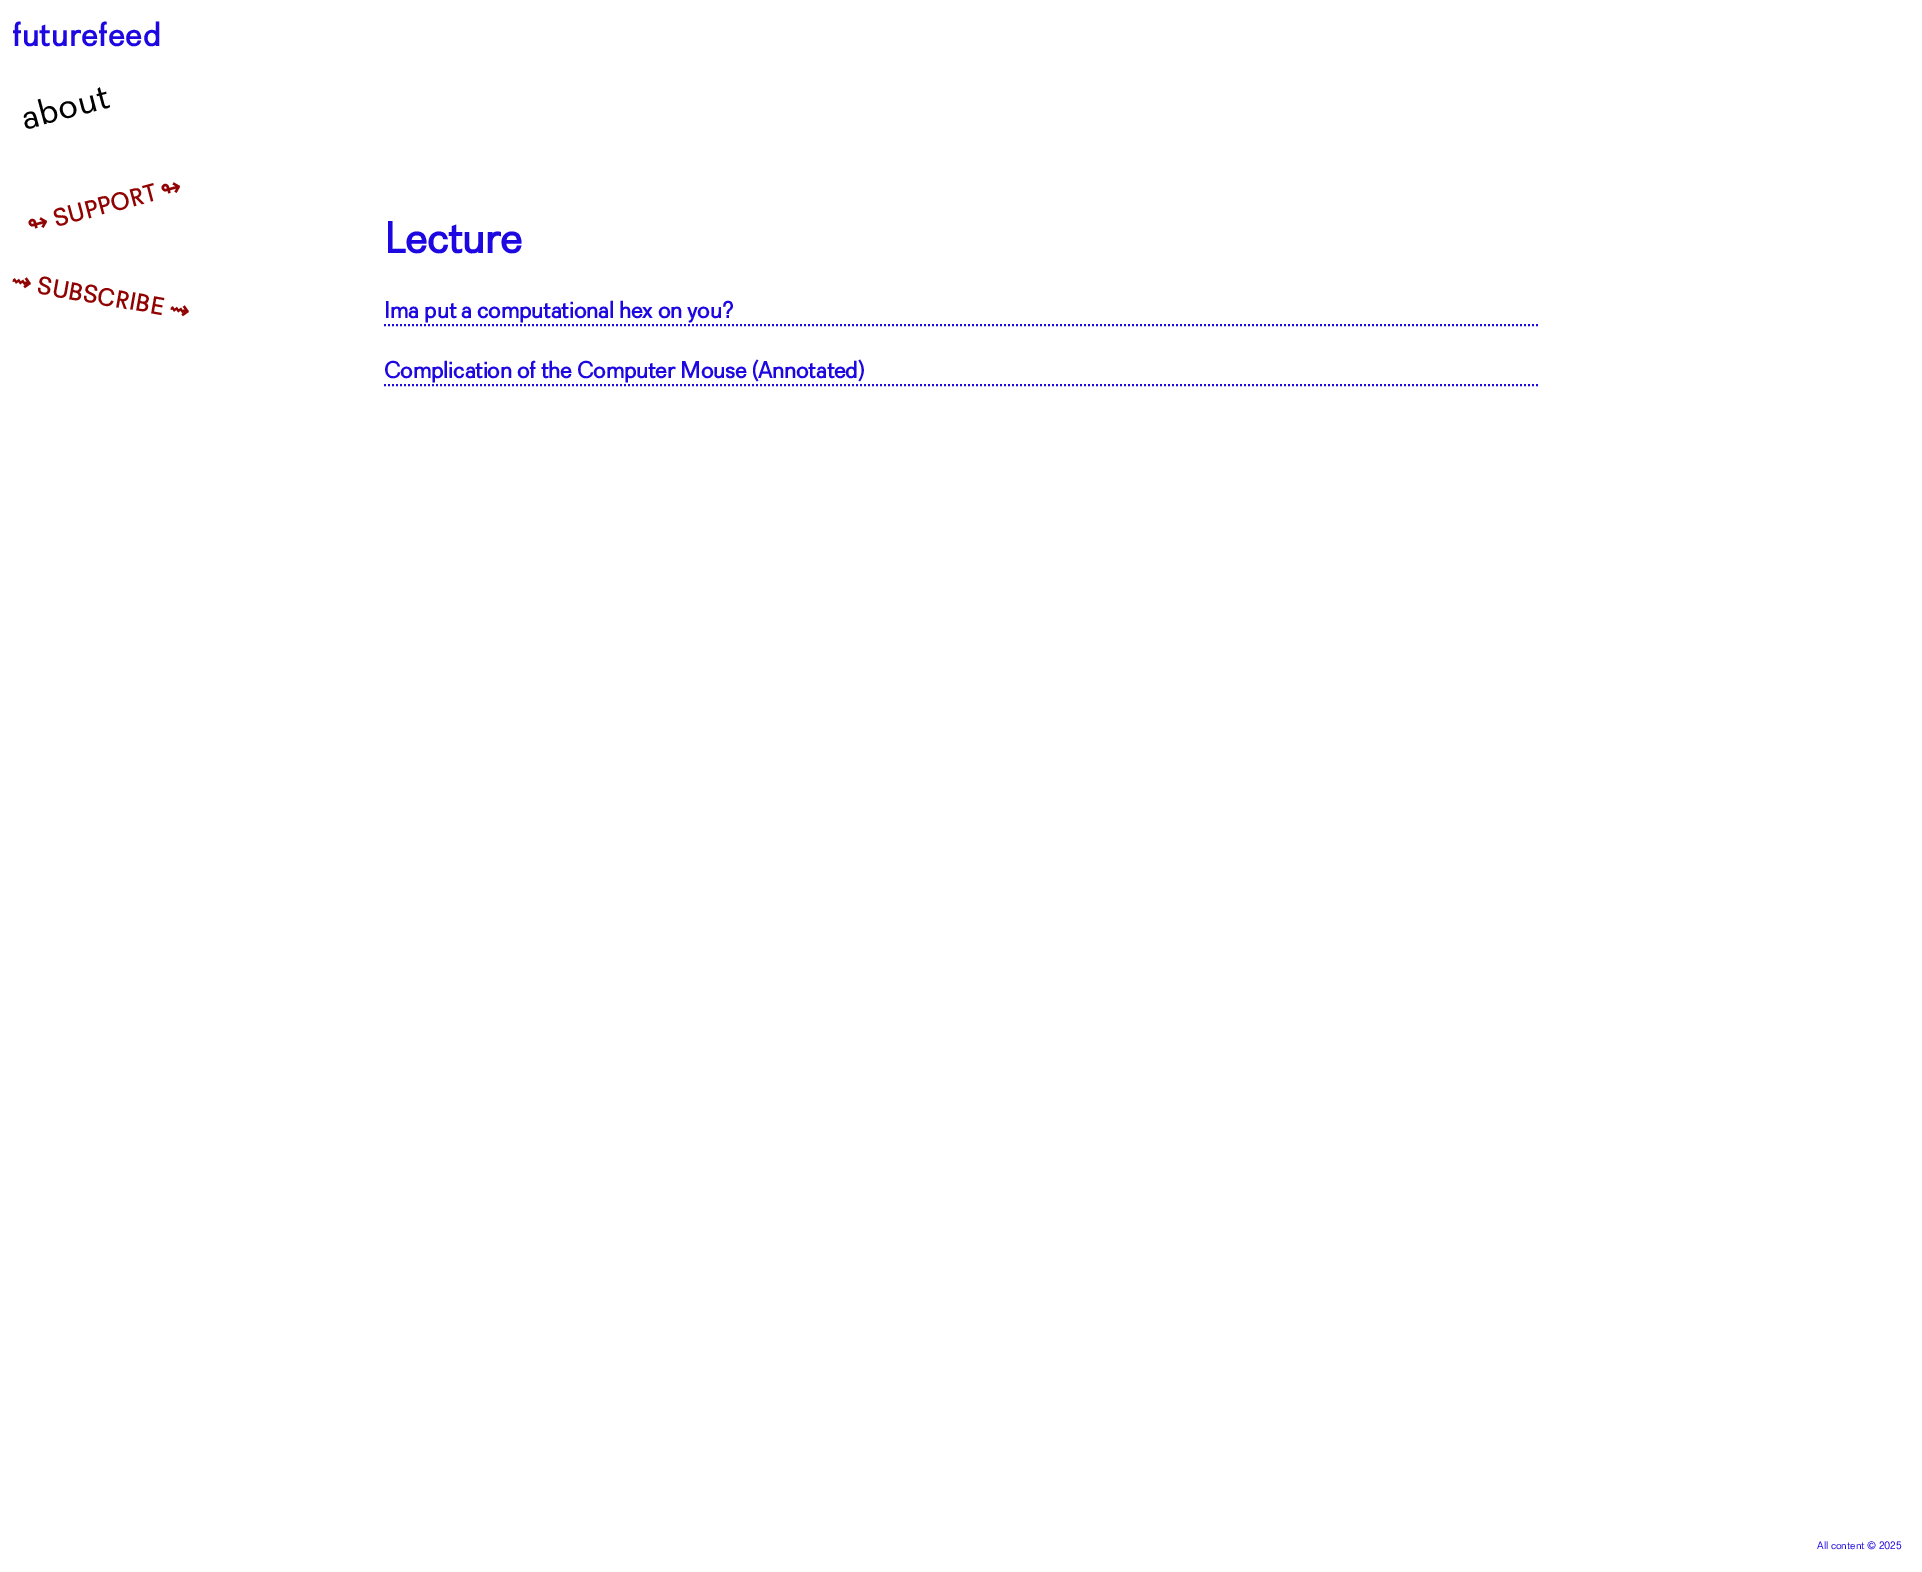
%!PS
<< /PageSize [1922 1572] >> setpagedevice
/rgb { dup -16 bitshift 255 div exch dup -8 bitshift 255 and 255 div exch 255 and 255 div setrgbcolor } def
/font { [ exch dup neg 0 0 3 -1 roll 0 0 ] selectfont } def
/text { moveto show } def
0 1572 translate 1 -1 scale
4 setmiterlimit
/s1 { /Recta-Bold 44 font 16#1E08E2 rgb } def
/s2 { /Recta-Bold 23.25 font 16#1E08E2 rgb } def
/s3 { /Recta-Regular 10.75 font 16#1E08E2 rgb } def
16#FFFFFF rgb
0 0 1922 1572 rectfill
/Recta-Bold 33 font
16#1E08E2 rgb
12 46 moveto 0.9 0 (futurefeed) ashow
/Recta-Regular 36 font
16#000000 rgb
gsave 25 130 translate -15 rotate 0 0 moveto 1 0 (about) ashow grestore
/Recta-Bold 24 font
16#910303 rgb
gsave 56 227 translate -15 rotate 0 0 moveto 0.75 0 (SUPPORT) ashow grestore
/DejaVuSans-Bold 24 font
gsave 163 199 translate -15 rotate 0 0 moveto 0.75 0 (↬) ashow grestore
gsave 30 234 translate -15 rotate 0 0 moveto 0.75 0 (↬) ashow grestore
gsave 10 288 translate 10 rotate 0 0 moveto 0.75 0 (⇝) ashow grestore
/Recta-Bold 24 font
gsave 36 293 translate 10 rotate 0 0 moveto 0.75 0 (SUBSCRIBE) ashow grestore
/DejaVuSans-Bold 24 font
gsave 168 316 translate 10 rotate 0 0 moveto 0.75 0 (⇝) ashow grestore
s1
(Lecture) 384 253 text
2 setlinewidth
[2 2] 0 setdash
384 325 moveto 1538 325 lineto stroke
s2
(Ima put a computational hex on you?) 384 318 text
384 385 moveto 1538 385 lineto stroke
(Complication of the Computer Mouse \(Annotated\)) 384 378 text
s3
(All content © 2025) 1817 1549 text
showpage
